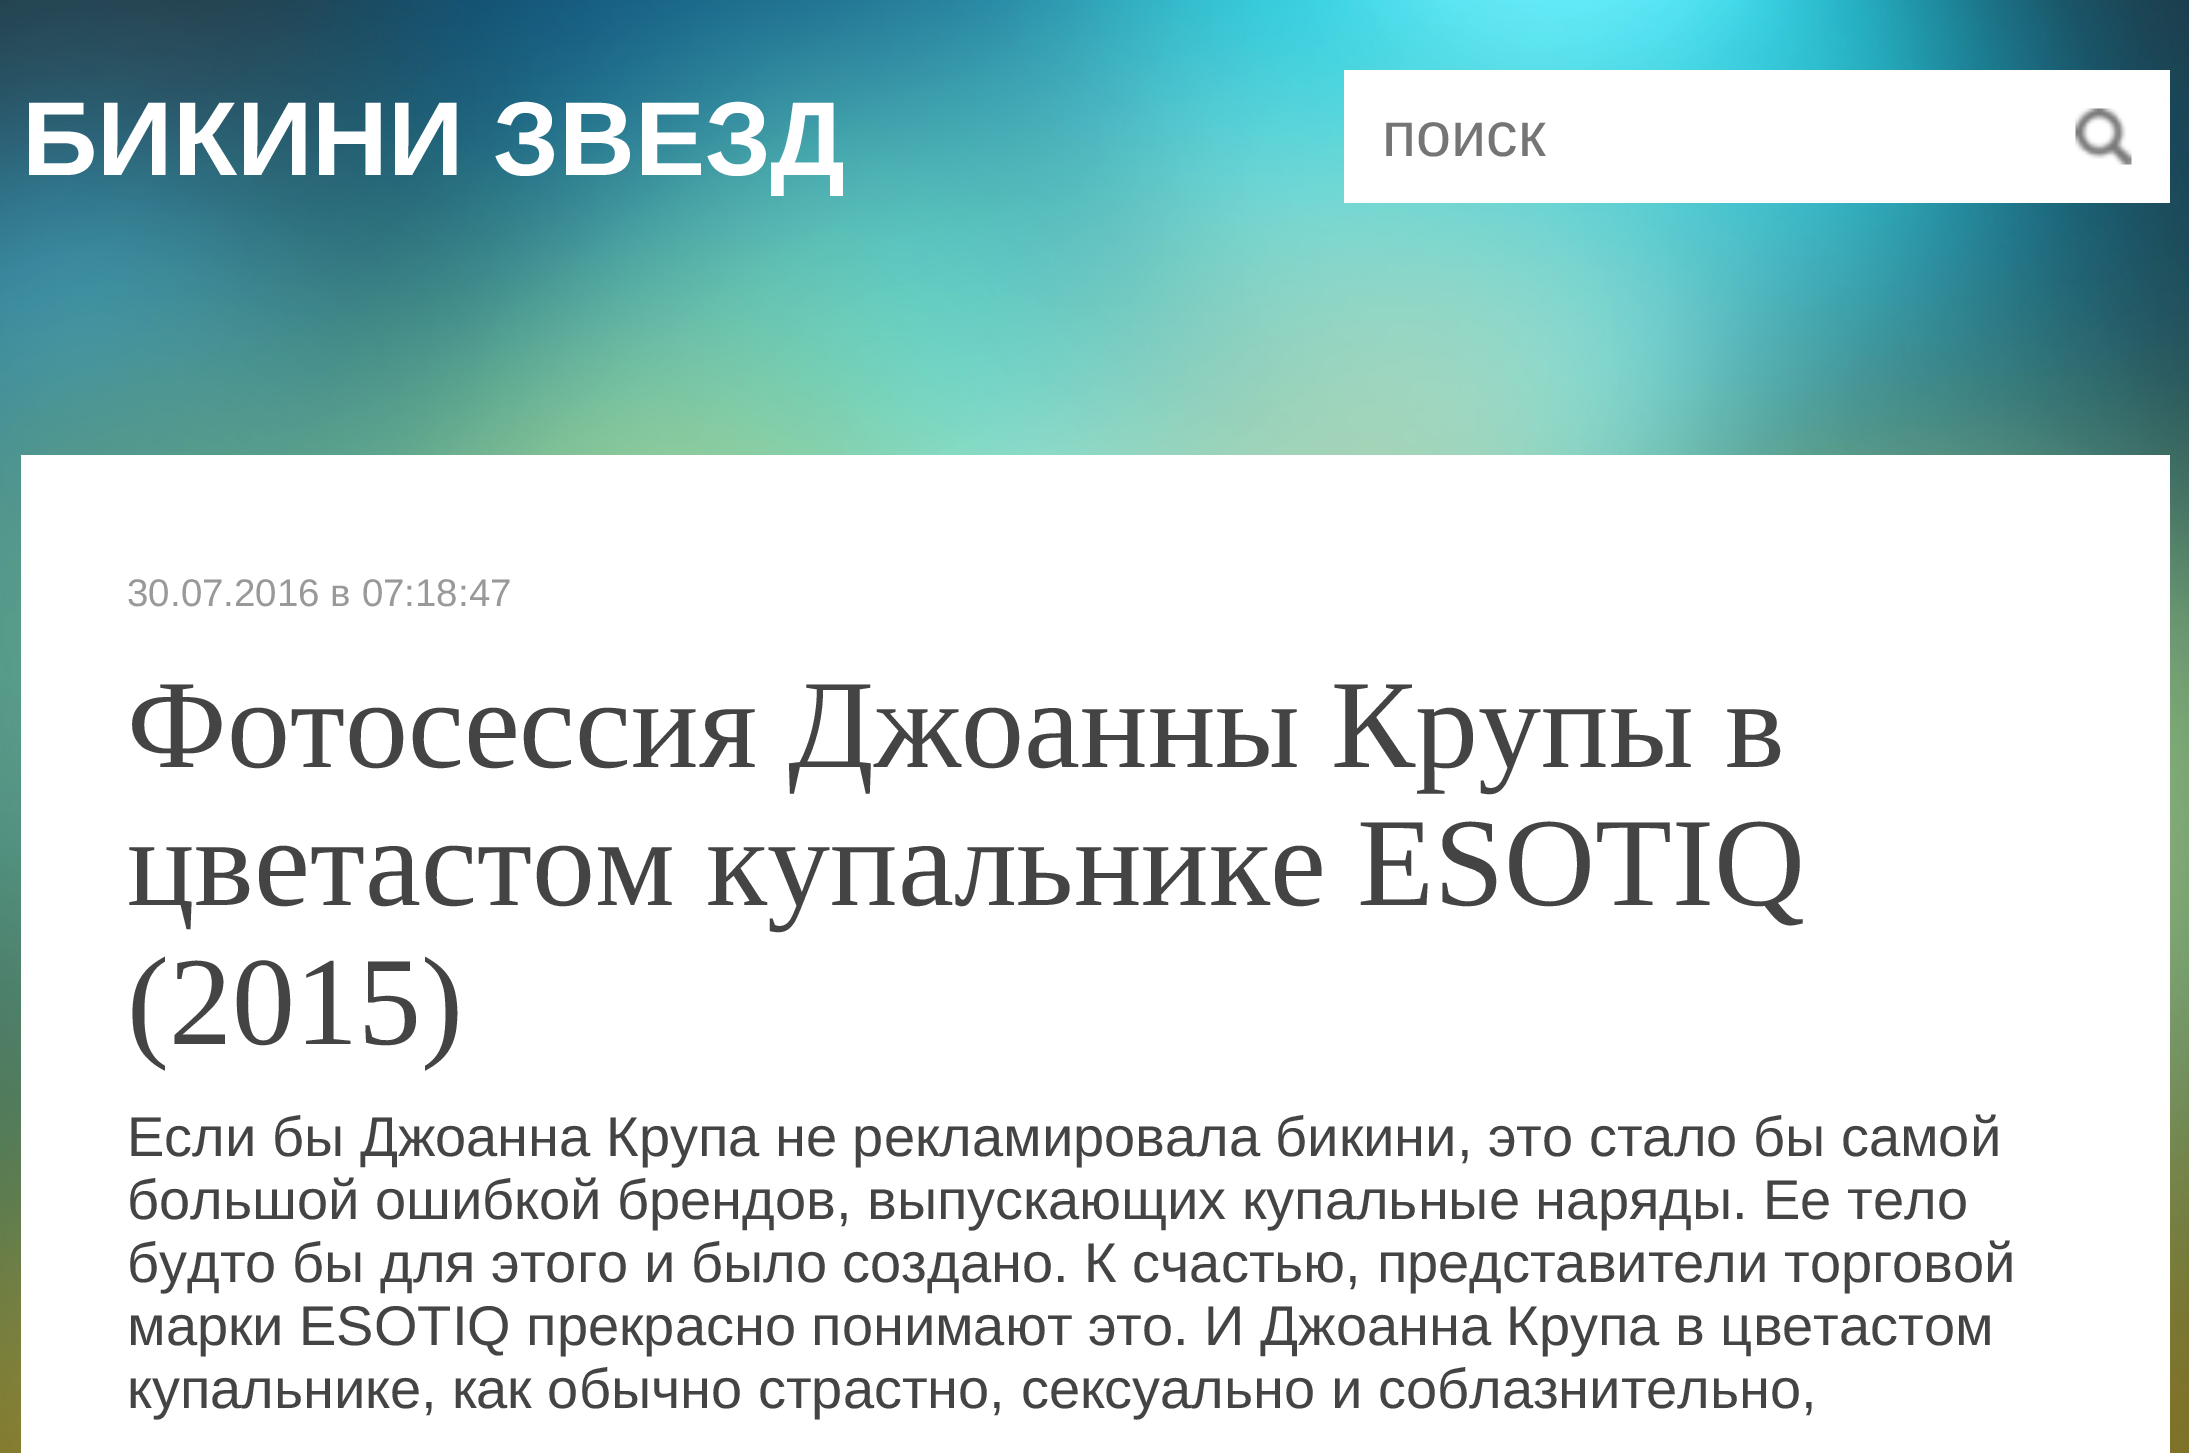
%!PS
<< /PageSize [2189 1453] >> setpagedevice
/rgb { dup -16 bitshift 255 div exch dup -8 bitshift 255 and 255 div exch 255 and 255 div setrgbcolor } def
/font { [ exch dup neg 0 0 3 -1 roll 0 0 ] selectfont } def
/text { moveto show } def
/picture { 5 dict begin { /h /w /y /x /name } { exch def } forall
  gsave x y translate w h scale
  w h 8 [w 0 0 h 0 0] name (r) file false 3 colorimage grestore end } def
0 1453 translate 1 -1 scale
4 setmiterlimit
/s1 { /LiberationSans-Bold 105 font 16#FFFFFF rgb } def
/s2 { /LiberationSans-Regular 63 font 16#757575 rgb } def
/s3 { /LiberationSans-Regular 38.5 font 16#999999 rgb } def
/s4 { /LiberationSerif-Regular 126 font 16#444444 rgb } def
/s5 { /LiberationSans-Regular 56 font 16#444444 rgb } def
16#FFFFFF rgb
0 0 2189 1453 rectfill
(pic1.raw) 0 0 2189 1453 picture
s1
(БИКИНИ ЗВЕЗД) 22 175 text
1344 70 826 133 rectfill
s2
(поиск) 1382 156 text
(pic2.raw) 2075 108 57 57 picture
16#FFFFFF rgb
21 455 2149 998 rectfill
s3
(30.07.2016 в 07:18:47) 127 606 text
s4
(Фотосессия Джоанны Крупы в) 127 767 text
(цветастом купальнике ESOTIQ) 127 905 text
(\(2015\)) 127 1044 text
s5
(Если бы Джоанна Крупа не рекламировала бикини, это стало бы самой) 127 1156 text
(большой ошибкой брендов, выпускающих купальные наряды. Ее тело) 127 1219 text
(будто бы для этого и было создано. К счастью, представители торговой) 127 1282 text
(марки ESOTIQ прекрасно понимают это. И Джоанна Крупа в цветастом) 127 1345 text
(купальнике, как обычно страстно, сексуально и соблазнительно,) 127 1408 text
showpage
